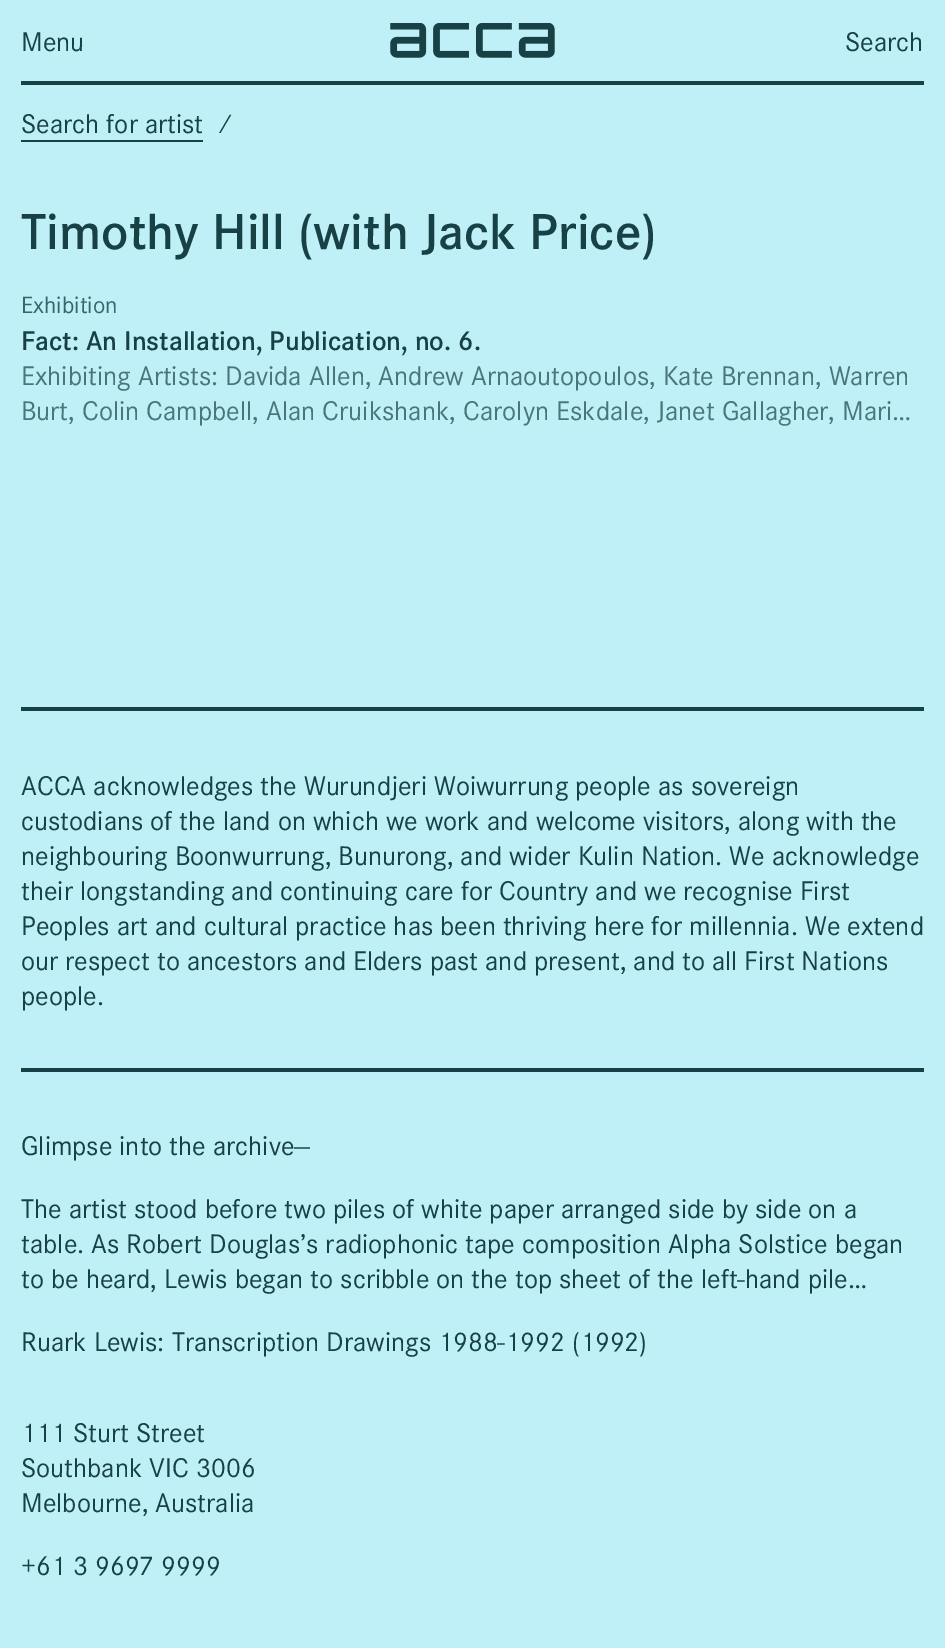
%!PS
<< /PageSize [945 1648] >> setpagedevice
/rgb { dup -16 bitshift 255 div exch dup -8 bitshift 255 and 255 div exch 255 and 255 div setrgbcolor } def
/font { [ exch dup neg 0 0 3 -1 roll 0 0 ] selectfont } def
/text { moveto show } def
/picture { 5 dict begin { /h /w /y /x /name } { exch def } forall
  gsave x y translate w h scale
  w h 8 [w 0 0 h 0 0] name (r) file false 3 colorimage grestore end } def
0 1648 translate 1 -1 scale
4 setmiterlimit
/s1 { /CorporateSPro-Regular 28 font 16#184146 rgb } def
/s2 { /CorporateSPro-SemiBold 52.5 font 16#184146 rgb } def
/s3 { /CorporateSPro-Regular 24.5 font 16#396469 rgb } def
/s4 { /CorporateSPro-SemiBold 28 font 16#184146 rgb } def
/s5 { /CorporateSPro-Regular 28 font 16#4A757B rgb } def
16#BFEFF7 rgb
0 0 945 1648 rectfill
16#184146 rgb
21 81 903 4 rectfill
s1
(Menu) 21 51 text
(pic1.raw) 390 23 165 35 picture
(Search) 845 51 text
(Search for artist) 21 133 text
21 140 182 2 rectfill
(⁄) 224 133 text
s2
(Timothy Hill \(with Jack Price\)) 21 249 text
s3
(Exhibition) 21 313 text
s4
(Fact: An Installation, Publication, no. 6.) 21 350 text
s5
(Exhibiting Artists: Davida Allen, Andrew Arnaoutopoulos, Kate Brennan, Warren) 21 385 text
(Burt, Colin Campbell, Alan Cruikshank, Carolyn Eskdale, Janet Gallagher, Mari…) 21 420 text
16#184146 rgb
21 707 903 4 rectfill
(ACCA acknowledges the Wurundjeri Woiwurrung people as sovereign) 21 795 text
(custodians of the land on which we work and welcome visitors, along with the) 21 830 text
(neighbouring Boonwurrung, Bunurong, and wider Kulin Nation. We acknowledge) 21 865 text
(their longstanding and continuing care for Country and we recognise First) 21 900 text
(Peoples art and cultural practice has been thriving here for millennia. We extend) 21 935 text
(our respect to ancestors and Elders past and present, and to all First Nations) 21 970 text
(people.) 21 1005 text
21 1068 903 4 rectfill
(Glimpse into the archive—) 21 1155 text
(The artist stood before two piles of white paper arranged side by side on a) 21 1218 text
(table. As Robert Douglas’s radiophonic tape composition Alpha Solstice began) 21 1253 text
(to be heard, Lewis began to scribble on the top sheet of the left-hand pile…) 21 1288 text
(Ruark Lewis: Transcription Drawings 1988-1992 \(1992\)) 21 1351 text
(111 Sturt Street) 21 1442 text
(Southbank VIC 3006) 21 1477 text
(Melbourne, Australia) 21 1512 text
(+61 3 9697 9999) 21 1575 text
showpage
